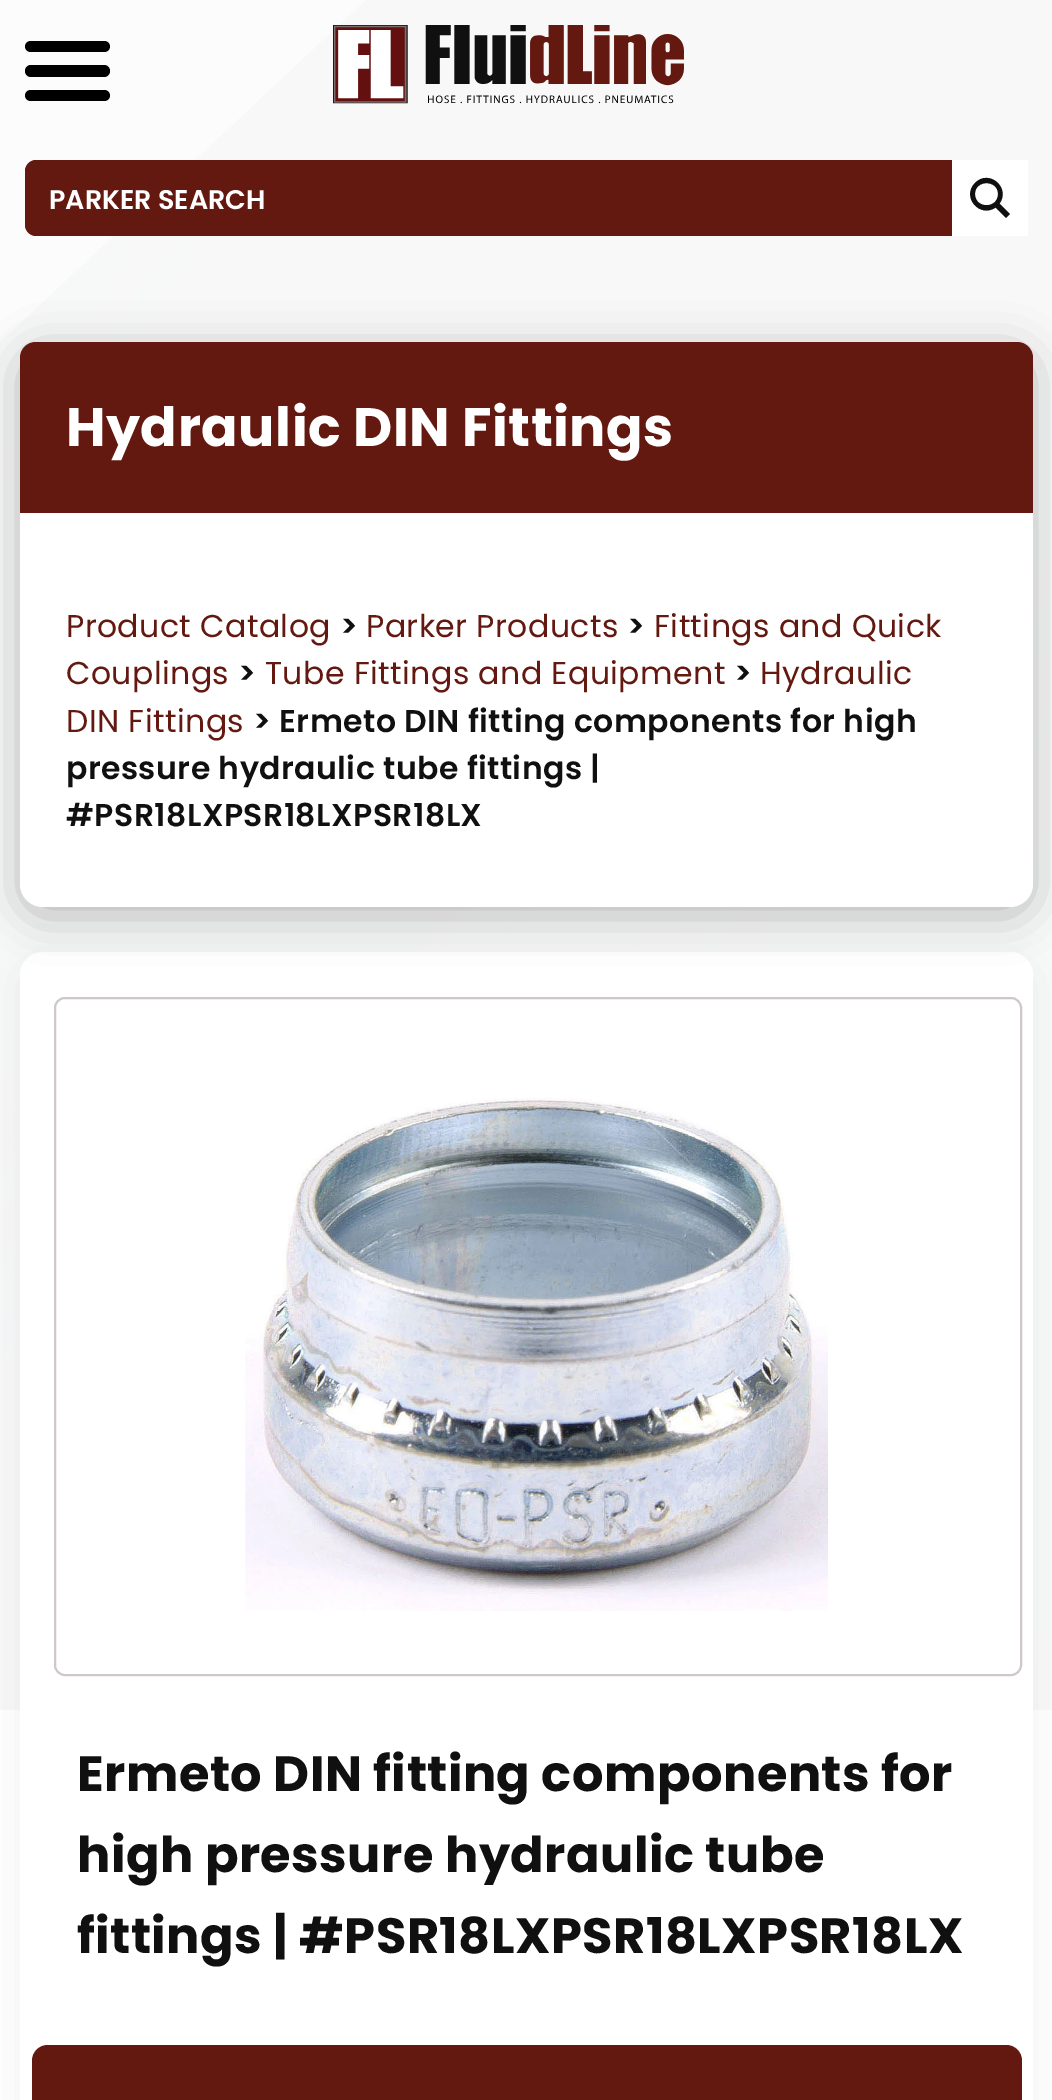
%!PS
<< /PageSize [1052 2100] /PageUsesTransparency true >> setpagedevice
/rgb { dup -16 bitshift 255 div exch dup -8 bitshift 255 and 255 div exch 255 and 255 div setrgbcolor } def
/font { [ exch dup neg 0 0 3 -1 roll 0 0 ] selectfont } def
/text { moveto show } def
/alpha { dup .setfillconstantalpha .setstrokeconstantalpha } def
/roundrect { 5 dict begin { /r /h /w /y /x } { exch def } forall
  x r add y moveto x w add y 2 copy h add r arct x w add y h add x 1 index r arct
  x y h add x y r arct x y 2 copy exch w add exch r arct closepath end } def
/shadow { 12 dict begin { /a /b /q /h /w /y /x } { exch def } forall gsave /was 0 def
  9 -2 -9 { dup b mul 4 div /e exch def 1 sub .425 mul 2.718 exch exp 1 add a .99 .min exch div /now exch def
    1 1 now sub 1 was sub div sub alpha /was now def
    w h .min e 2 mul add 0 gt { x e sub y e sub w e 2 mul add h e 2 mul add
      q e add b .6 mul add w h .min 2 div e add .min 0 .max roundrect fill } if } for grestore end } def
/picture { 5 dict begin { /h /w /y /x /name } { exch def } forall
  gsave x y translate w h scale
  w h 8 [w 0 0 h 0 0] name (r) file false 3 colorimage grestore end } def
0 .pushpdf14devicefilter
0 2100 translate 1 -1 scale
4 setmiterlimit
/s1 { /Poppins-SemiBold 27 font 16#FFFFFF rgb } def
16#FFFFFF rgb
0 0 1052 2100 rectfill
(pic1.raw) 0 0 1052 1710 picture
16#000000 rgb
25 41 85 11 5.5 roundrect fill
25 65 85 12 6 roundrect fill
25 90 85 11 5.5 roundrect fill
(pic2.raw) 333 25 351 79 picture
16#631910 rgb
36 160 moveto 1028 160 lineto 1028 236 lineto 36 236 lineto 30 236 25 231 25 225 curveto 25 171 lineto 25 165 30 160 36 160 curveto closepath fill
s1
(PARKER SEARCH) 49 209 text
952 160 76 76 rectfill
16#101010 rgb
1010 214 moveto 999.5 203.5 lineto 1011 188 989 168.5 975 183 curveto 961 197 980 218.5 995.5 207.5 curveto 1006 218 lineto closepath 975 194 moveto 975 179.5 998 179.5 998 194 curveto 998 209 975 209 975 194 curveto closepath fill
16#C0C0C0 rgb
20 961 1013 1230 23 22.5 0.25 shadow
16#FFFFFF rgb
20 952 1013 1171 23 roundrect fill
16#010101 rgb
20 351 1013 565 23 22.5 0.25 shadow
16#FFFFFF rgb
20 342 1013 565 23 roundrect fill
16#631910 rgb
36 342 moveto 1017 342 lineto 1026 342 1033 349 1033 358 curveto 1033 513 lineto 20 513 lineto 20 358 lineto 20 349 27 342 36 342 curveto closepath fill
/Poppins-Bold 54 font
16#FFFFFF rgb
66 446 moveto 0.45 0 (Hydraulic DIN Fittings) ashow
/Poppins-Regular 31.5 font
16#631910 rgb
66 637 moveto 0.45 0 (Product Catalog) ashow
/Poppins-SemiBold 31.5 font
16#101010 rgb
340 637 moveto 0.45 0 (>) ashow
/Poppins-Regular 31.5 font
16#631910 rgb
366 637 moveto 0.45 0 (Parker Products) ashow
/Poppins-SemiBold 31.5 font
16#101010 rgb
627 637 moveto 0.45 0 (>) ashow
/Poppins-Regular 31.5 font
16#631910 rgb
654 637 moveto 0.45 0 (Fittings and Quick) ashow
66 684 moveto 0.45 0 (Couplings) ashow
/Poppins-SemiBold 31.5 font
16#101010 rgb
238 684 moveto 0.45 0 (>) ashow
/Poppins-Regular 31.5 font
16#631910 rgb
265 684 moveto 0.45 0 (Tube Fittings and Equipment) ashow
/Poppins-SemiBold 31.5 font
16#101010 rgb
734 684 moveto 0.45 0 (>) ashow
/Poppins-Regular 31.5 font
16#631910 rgb
760 684 moveto 0.45 0 (Hydraulic) ashow
66 732 moveto 0.45 0 (DIN Fittings) ashow
/Poppins-SemiBold 31.5 font
16#101010 rgb
253 732 moveto 0.45 0 (> Ermeto DIN fitting components for high) ashow
66 779 moveto 0.45 0 (pressure hydraulic tube fittings |) ashow
66 826 moveto 0.45 0 (#PSR18LXPSR18LXPSR18LX) ashow
16#CEC8C8 rgb
2 setlinewidth
55 998 966 677 10 roundrect stroke
(pic3.raw) 245 1097 583 514 picture
/Poppins-Bold 49.5 font
16#101010 rgb
77 1791 moveto 0.45 0 (Ermeto DIN fitting components for) ashow
77 1872 moveto 0.45 0 (high pressure hydraulic tube) ashow
77 1953 moveto 0.45 0 (fittings | #PSR18LXPSR18LXPSR18LX) ashow
16#631910 rgb
48 2045 moveto 1006 2045 lineto 1015 2045 1022 2052 1022 2061 curveto 1022 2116 lineto 32 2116 lineto 32 2061 lineto 32 2052 39 2045 48 2045 curveto closepath fill
.poppdf14devicefilter showpage
